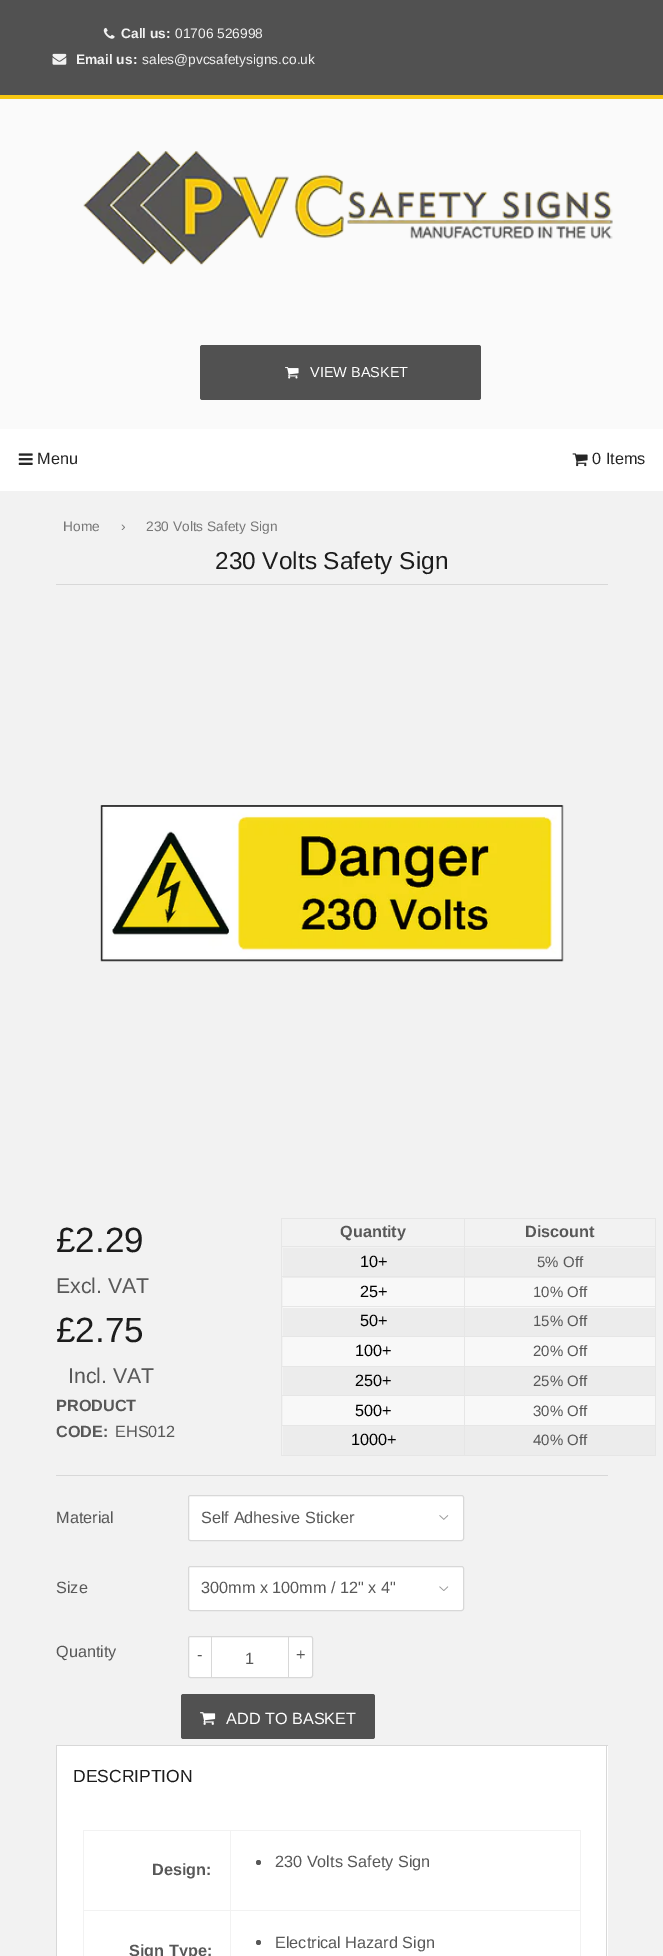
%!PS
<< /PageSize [663 1956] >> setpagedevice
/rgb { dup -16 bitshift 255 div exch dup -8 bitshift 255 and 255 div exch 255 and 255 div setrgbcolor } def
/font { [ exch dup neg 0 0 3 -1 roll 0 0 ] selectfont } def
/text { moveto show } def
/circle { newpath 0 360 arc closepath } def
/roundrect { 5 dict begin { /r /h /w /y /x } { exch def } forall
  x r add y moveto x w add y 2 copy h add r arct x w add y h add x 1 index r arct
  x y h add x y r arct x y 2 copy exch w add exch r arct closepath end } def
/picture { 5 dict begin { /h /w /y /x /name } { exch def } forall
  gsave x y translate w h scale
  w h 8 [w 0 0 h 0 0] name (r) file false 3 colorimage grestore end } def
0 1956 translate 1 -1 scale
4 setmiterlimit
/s1 { /LiberationSans-Bold 13.75 font 16#F2F2F2 rgb } def
/s2 { /LiberationSans-Regular 13.75 font 16#F2F2F2 rgb } def
/s3 { /LiberationSans-Regular 14.5 font 16#FFFFFF rgb } def
/s4 { /LiberationSans-Regular 16.25 font 16#252525 rgb } def
/s5 { /LiberationSans-Regular 13.75 font 16#777777 rgb } def
/s6 { /LiberationSans-Regular 24.4 font 16#1C1C1C rgb } def
/s7 { /LiberationSans-Regular 35 font 16#1C1C1C rgb } def
/s8 { /LiberationSans-Regular 21.25 font 16#585858 rgb } def
/s9 { /LiberationSans-Bold 16.25 font 16#585858 rgb } def
/s10 { /LiberationSans-Regular 16.25 font 16#585858 rgb } def
/s11 { /LiberationSans-Regular 16.25 font 16#000000 rgb } def
/s12 { /LiberationSans-Regular 15 font 16#585858 rgb } def
/s13 { /LiberationSans-Regular 16.25 font 16#FFFFFF rgb } def
/s14 { /LiberationSans-Regular 17.5 font 16#1C1C1C rgb } def
16#F2F2F2 rgb
0 0 663 1956 rectfill
16#515151 rgb
0 0 663 95 rectfill
16#F7C712 rgb
0 95 663 4 rectfill
(pic1.raw) 103 27 12 12 picture
s1
(Call us:) 121 38 text
s2
(01706 526998) 175 38 text
(pic2.raw) 52 53 15 12 picture
s1
(Email us:) 76 64 text
s2
(sales@pvcsafetysigns.co.uk) 142 64 text
16#FAFAFA rgb
0 99 663 330 rectfill
(pic3.raw) 83 151 530 115 picture
16#515151 rgb
200 345 281 55 2.5 roundrect fill
(pic4.raw) 285 367 14 12 picture
s3
(VIEW BASKET) 310 377 text
0 429 663 62 rectfill
(pic5.raw) 18 453 15 12 picture
s4
(Menu) 37 464 text
(pic6.raw) 572 453 16 14 picture
(0 Items) 592 464 text
s5
(Home) 63 531 text
(›) 121 531 text
(230 Volts Safety Sign) 146 531 text
16#D8D8D8 rgb
56 584 552 1 rectfill
s6
(230 Volts Safety Sign) 215 569 text
(pic7.raw) 100 805 464 157 picture
s7
(£2.29) 56 1252 text
s8
(Excl. VAT) 56 1293 text
s7
(£2.75) 56 1342 text
s8
(Incl. VAT) 68 1383 text
s9
(PRODUCT) 56 1411 text
(CODE:) 56 1437 text
s10
(EHS012) 115 1437 text
16#E6E6E6 rgb
464 1218 192 1 rectfill
464 1246 192 1 rectfill
16#ECECEC rgb
283 1248 372 30 rectfill
16#E6E6E6 rgb
464 1276 192 1 rectfill
16#F8F8F8 rgb
283 1278 372 30 rectfill
16#E6E6E6 rgb
464 1306 192 1 rectfill
16#ECECEC rgb
283 1308 372 28 rectfill
16#F8F8F8 rgb
283 1337 372 29 rectfill
16#E6E6E6 rgb
464 1336 192 1 rectfill
16#ECECEC rgb
283 1367 372 28 rectfill
16#E6E6E6 rgb
464 1366 192 1 rectfill
464 1395 192 1 rectfill
16#F8F8F8 rgb
283 1396 372 29 rectfill
16#E6E6E6 rgb
464 1425 192 1 rectfill
16#ECECEC rgb
283 1426 372 29 rectfill
16#E6E6E6 rgb
655 1425 1 31 rectfill
464 1455 192 1 rectfill
464 1425 1 31 rectfill
281 1425 184 1 rectfill
464 1395 1 31 rectfill
281 1395 184 1 rectfill
464 1366 1 30 rectfill
281 1366 184 1 rectfill
464 1336 1 32 rectfill
281 1336 184 1 rectfill
464 1306 1 32 rectfill
281 1306 184 1 rectfill
464 1276 1 32 rectfill
281 1276 184 1 rectfill
464 1246 1 32 rectfill
281 1246 184 1 rectfill
464 1218 1 30 rectfill
281 1218 184 1 rectfill
281 1455 184 1 rectfill
281 1425 1 31 rectfill
281 1395 1 31 rectfill
281 1366 1 30 rectfill
281 1336 1 32 rectfill
281 1306 1 32 rectfill
281 1276 1 32 rectfill
281 1246 1 32 rectfill
281 1218 1 30 rectfill
s9
(Quantity) 340 1237 text
16#E6E6E6 rgb
655 1395 1 31 rectfill
655 1366 1 30 rectfill
655 1336 1 32 rectfill
655 1306 1 32 rectfill
655 1276 1 32 rectfill
655 1246 1 32 rectfill
655 1218 1 30 rectfill
s9
(Discount) 525 1237 text
s11
(10+) 360 1267 text
s12
(5% Off) 537 1267 text
s11
(25+) 360 1297 text
s12
(10% Off) 533 1297 text
s11
(50+) 360 1326 text
s12
(15% Off) 533 1326 text
s11
(100+) 355 1356 text
s12
(20% Off) 533 1356 text
s11
(250+) 355 1386 text
s12
(25% Off) 533 1386 text
s11
(500+) 355 1416 text
s12
(30% Off) 533 1416 text
s11
(1000+) 351 1445 text
s12
(40% Off) 533 1445 text
16#D8D8D8 rgb
56 1475 552 1 rectfill
s10
(Material) 56 1523 text
16#FFFFFF rgb
188 1495 276 46 2.5 roundrect fill
(pic8.raw) 439 1515 10 5 picture
16#D8D8D8 rgb
188.5 1495.5 275 45 2 roundrect stroke
s10
(Self Adhesive Sticker) 201 1523 text
(Size) 56 1593 text
16#FFFFFF rgb
188 1566 276 45 2.5 roundrect fill
(pic9.raw) 439 1586 10 5 picture
16#D8D8D8 rgb
188.5 1566.5 275 44 2 roundrect stroke
s10
(300mm x 100mm / 12" x 4") 201 1593 text
(Quantity) 56 1657 text
16#FFFFFF rgb
188.5 1636.5 124 41 2 roundrect gsave fill grestore
16#D8D8D8 rgb
stroke
211 1636 1 42 rectfill
s10
(-) 197 1660 text
(1) 245 1664 text
16#D8D8D8 rgb
288 1636 1 42 rectfill
s10
(+) 296 1660 text
16#515151 rgb
181 1694 194 45 2.5 roundrect fill
(pic10.raw) 200 1712 16 13 picture
s13
(ADD TO BASKET) 226 1724 text
16#D8D8D8 rgb
56 1745 552 1 rectfill
16#FFFFFF rgb
57 1746 551 210 rectfill
16#D8D8D8 rgb
606 1746 1 210 rectfill
56 1746 1 210 rectfill
s14
(DESCRIPTION) 73 1782 text
16#F2F2F2 rgb
230 1830 351 1 rectfill
230 1910 351 1 rectfill
230 1910 1 46 rectfill
83 1910 148 1 rectfill
230 1830 1 81 rectfill
83 1830 148 1 rectfill
83 1910 1 46 rectfill
83 1830 1 81 rectfill
s9
(Design:) 152 1875 text
16#F2F2F2 rgb
580 1910 1 46 rectfill
580 1830 1 81 rectfill
16#585858 rgb
258.5 1862.5 2.5 circle fill
s10
(230 Volts Safety Sign) 275 1867 text
s9
(Sign Type:) 129 1956 text
258.5 1942.5 2.5 circle fill
s10
(Electrical Hazard Sign) 275 1948 text
showpage
